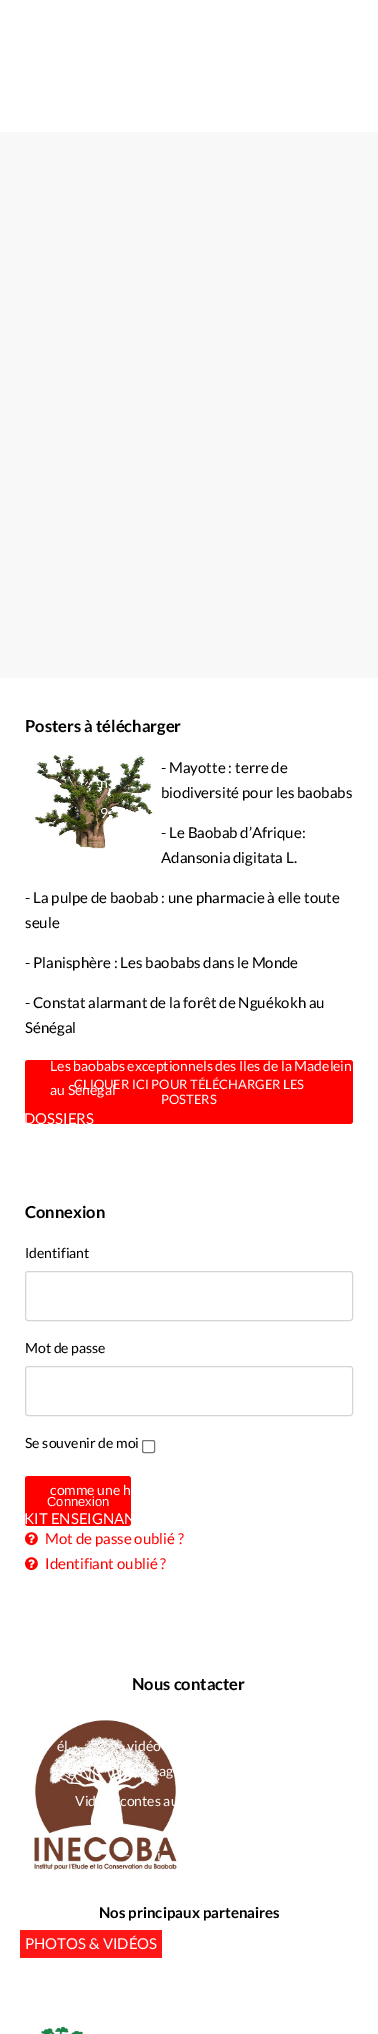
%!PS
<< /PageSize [378 2034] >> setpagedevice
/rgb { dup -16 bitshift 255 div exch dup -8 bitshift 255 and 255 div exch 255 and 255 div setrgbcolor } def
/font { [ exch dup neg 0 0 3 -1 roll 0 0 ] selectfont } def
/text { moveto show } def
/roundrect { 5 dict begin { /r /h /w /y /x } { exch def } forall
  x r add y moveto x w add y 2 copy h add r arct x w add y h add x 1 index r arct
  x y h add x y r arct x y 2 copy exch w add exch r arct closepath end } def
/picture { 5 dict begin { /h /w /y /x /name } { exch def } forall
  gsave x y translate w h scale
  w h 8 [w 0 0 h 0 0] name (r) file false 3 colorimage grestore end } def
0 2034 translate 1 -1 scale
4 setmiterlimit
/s1 { /Lato-Bold 16.5 font 16#000000 rgb } def
/s2 { /Lato-Regular 15 font 16#000000 rgb } def
/s3 { /Lato-Regular 13 font 16#FFFFFF rgb } def
/s4 { /Lato-Regular 14 font 16#000000 rgb } def
/s5 { /LiberationSans-Regular 13 font 16#FFFFFF rgb } def
/s6 { /Lato-Regular 15 font 16#FF0000 rgb } def
/s7 { /Lato-Bold 15 font 16#000000 rgb } def
/s8 { /Lato-Regular 14 font 16#FFFFFF rgb } def
/s9 { /Lato-Regular 15 font 16#FFFFFF rgb } def
16#FFFFFF rgb
0 0 378 2034 rectfill
16#F8F8F8 rgb
0 132 378 546 rectfill
s1
(Posters à télécharger) 25 732 text
(pic1.raw) 33 755 121 96 picture
s2
(- Mayotte : terre de) 161 773 text
(biodiversité pour les baobabs) 161 798 text
(- Le Baobab d’Afrique:) 161 838 text
(Adansonia digitata L.) 161 863 text
(- La pulpe de baobab : une pharmacie à elle toute) 25 903 text
(seule) 25 928 text
(- Planisphère : Les baobabs dans le Monde) 25 968 text
(- Constat alarmant de la forêt de Nguékokh au) 25 1008 text
(Sénégal) 25 1033 text
16#FF0000 rgb
25 1060 328 64 3 roundrect fill
s3
(CLIQUER ICI POUR TÉLÉCHARGER LES) 74 1089 text
(POSTERS) 161 1104 text
s1
(Connexion) 25 1218 text
s4
(Identifiant) 25 1258 text
16#D5D5D5 rgb
25.5 1271.5 327 49 2.5 roundrect stroke
s4
(Mot de passe) 25 1353 text
16#D5D5D5 rgb
25.5 1366.5 327 49 2.5 roundrect stroke
s4
(Se souvenir de moi) 25 1448 text
16#767676 rgb
142.5 1440.5 12 12 1.5 roundrect stroke
16#FF0000 rgb
25 1476 106 50 3 roundrect fill
s5
(Connexion) 47 1506 text
(pic2.raw) 25 1532 13 14 picture
s6
(Mot de passe oublié ?) 45 1544 text
(pic2.raw) 25 1557 13 14 picture
(Identifiant oublié ?) 45 1569 text
s1
(Nous contacter) 132 1690 text
(pic3.raw) 33 1720 146 150 picture
s7
(Nos principaux partenaires) 99 1918 text
(pic4.raw) 41 2026 42 8 picture
s8
(n) 100 788 text
(9) 100 818 text
(Les baobabs exceptionnels des Iles de la Madelein) 50 1071 text
(au Sénégal) 50 1095 text
s9
(DOSSIERS) 24 1124 text
s8
(comme une h) 50 1495 text
s9
(KIT ENSEIGNAN) 24 1524 text
s8
(él) 57 1751 text
(vidéo) 127 1751 text
(ag) 159 1776 text
(Vid) 75 1806 text
(contes au) 120 1806 text
(-) 125 1860 text
(i) 157 1860 text
16#FF1717 rgb
20 1930 142 28 rectfill
s9
(PHOTOS & VIDÉOS) 25 1949 text
showpage
